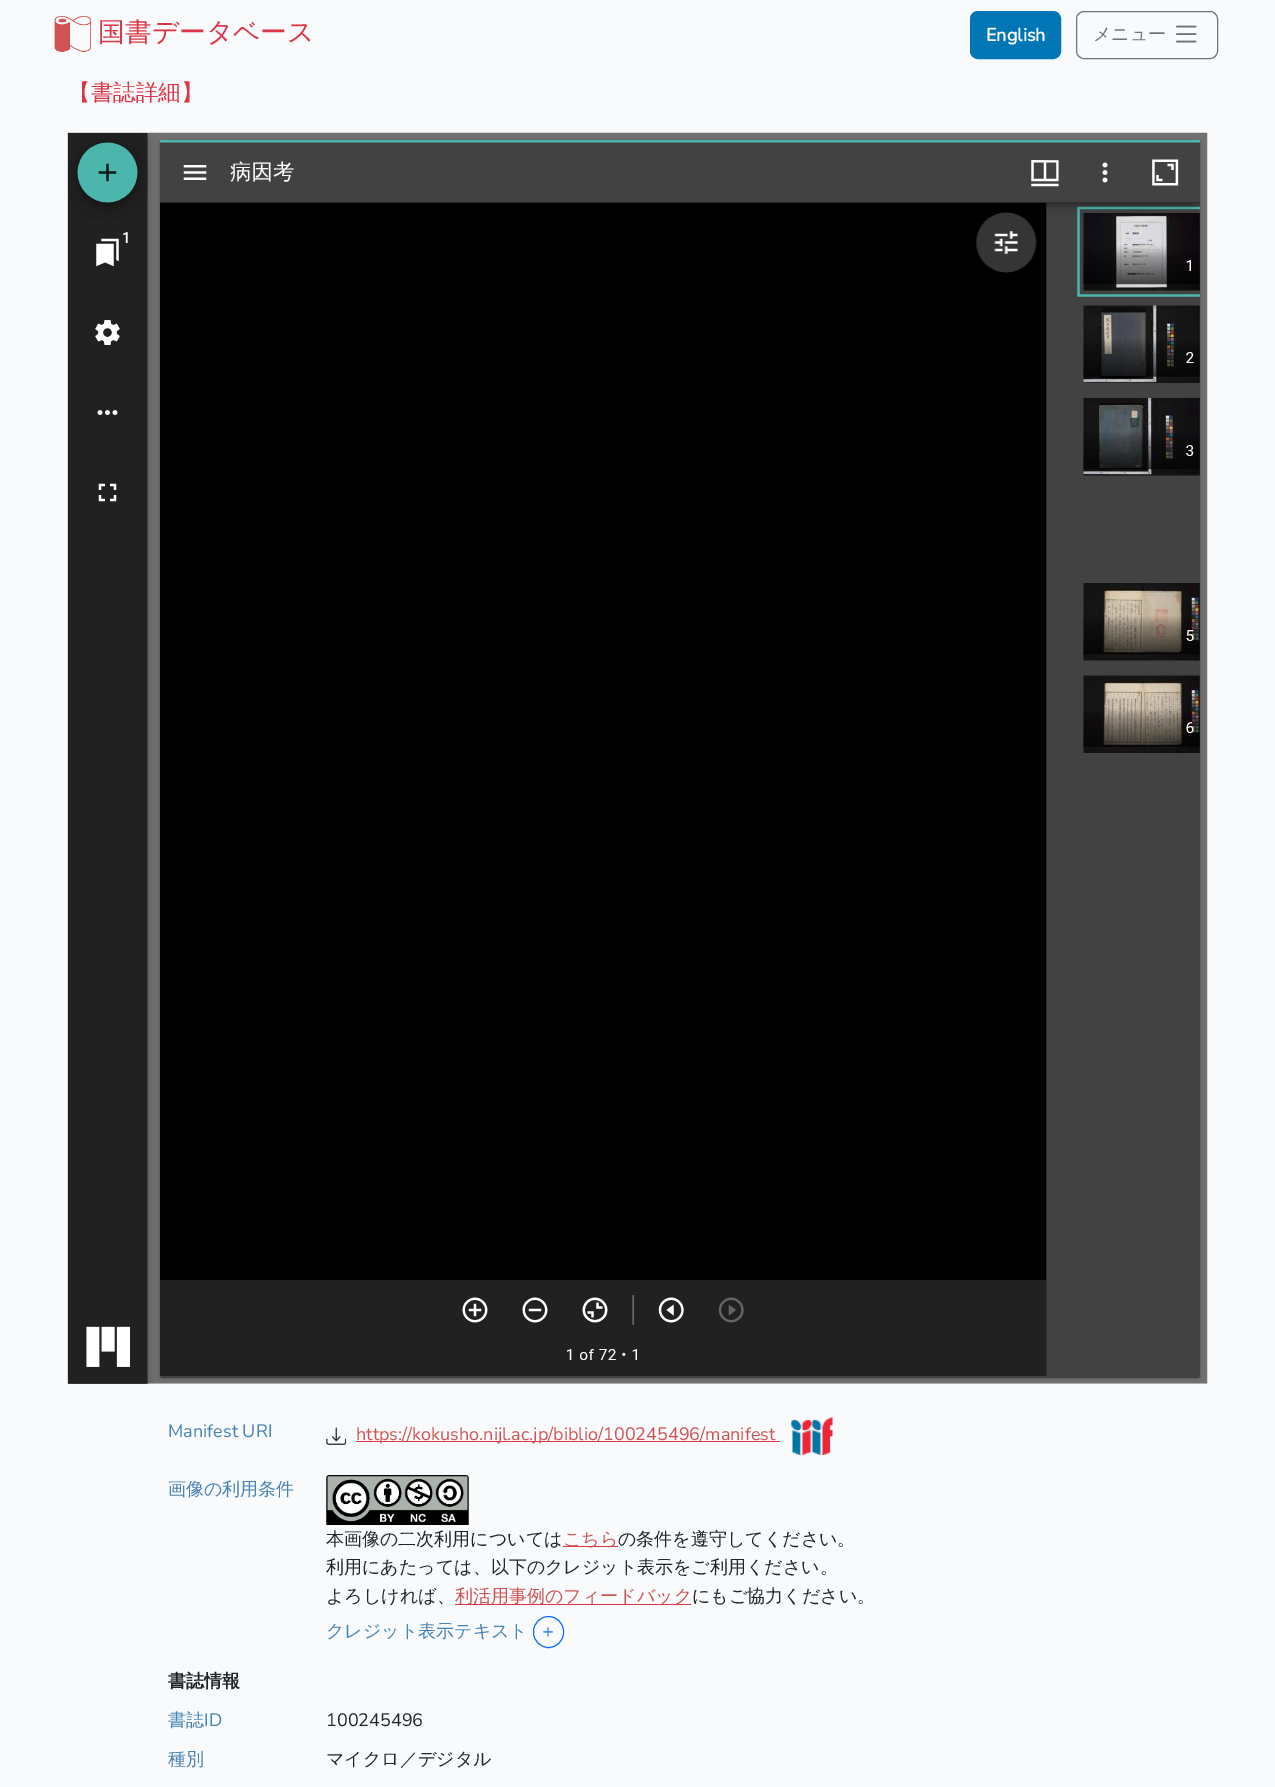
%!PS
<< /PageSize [1275 1787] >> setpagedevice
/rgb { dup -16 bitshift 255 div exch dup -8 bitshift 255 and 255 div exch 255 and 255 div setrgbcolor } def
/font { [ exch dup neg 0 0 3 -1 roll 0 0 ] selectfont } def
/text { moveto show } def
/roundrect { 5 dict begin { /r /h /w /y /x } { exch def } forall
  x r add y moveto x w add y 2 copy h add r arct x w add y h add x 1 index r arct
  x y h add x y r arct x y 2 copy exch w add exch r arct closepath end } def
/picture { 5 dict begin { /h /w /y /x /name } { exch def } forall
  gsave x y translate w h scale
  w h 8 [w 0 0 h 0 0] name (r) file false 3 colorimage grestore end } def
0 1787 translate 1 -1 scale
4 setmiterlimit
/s1 { /WenQuanYiZenHei-Medium 26.75 font 16#DC3545 rgb } def
/s2 { /Nunito-Bold 18 font 16#FFFFFF rgb } def
/s3 { /WenQuanYiZenHei-Medium 18 font 16#6C757D rgb } def
/s4 { /WenQuanYiZenHei-Medium 22.5 font 16#DC3545 rgb } def
/s5 { /Nunito-ExtraLight 18 font 16#4682B4 rgb } def
/s6 { /Nunito-ExtraLight 18 font 16#CF5352 rgb } def
/s7 { /WenQuanYiZenHei-Medium 18 font 16#4682B4 rgb } def
/s8 { /WenQuanYiZenHei-Medium 18 font 16#212529 rgb } def
/s9 { /WenQuanYiZenHei-Medium 18 font 16#CF5352 rgb } def
/s10 { /WenQuanYiZenHei-Medium 18 font 16#0D6EFD rgb } def
/s11 { /WenQuanYiZenHei-Bold 18 font 16#212529 rgb } def
/s12 { /Nunito-ExtraLight 18 font 16#212529 rgb } def
16#F8FAFC rgb
0 0 1275 1787 rectfill
(pic1.raw) 54 16 37 36 picture
s1
(国書データベース) 98 41 text
16#0176B5 rgb
970.5 11.5 90 47 7.5 roundrect gsave fill grestore
stroke
s2
(English) 986 41 text
16#6C757D rgb
1076.5 11.5 141 47 7.5 roundrect stroke
s3
(メニュー) 1093 40 text
(pic2.raw) 1176 25 21 18 picture
s4
(【書誌詳細】) 68 100 text
(pic3.raw) 67 132 1141 1252 picture
s5
(Manifest URI) 168 1437 text
(pic4.raw) 326 1427 20 18 picture
16#DC3545 rgb
356 1441 424 1 rectfill
s6
(https://kokusho.nijl.ac.jp/biblio/100245496/manifest) 356 1440 text
(pic5.raw) 791 1417 42 38 picture
s7
(画像の利用条件) 168 1495 text
(pic6.raw) 326 1475 143 50 picture
s8
(本画像の二次利用については) 326 1545 text
16#DC3545 rgb
563 1546 55 1 rectfill
s9
(こちら) 563 1545 text
s8
(の条件を遵守してください。) 618 1545 text
(利用にあたっては、以下のクレジット表示をご利用ください。) 326 1573 text
(よろしければ、) 326 1602 text
16#DC3545 rgb
455 1604 236 1 rectfill
s9
(利活用事例のフィードバック) 455 1602 text
s8
(にもご協力ください。) 692 1602 text
s7
(クレジット表示テキスト) 326 1637 text
16#0D6EFD rgb
533.5 1616.5 30 31 15 roundrect stroke
(＋) 539 1637 text
s11
(書誌情報) 168 1687 text
s7
(書誌) 168 1726 text
s5
(ID) 204 1726 text
s12
(100245496) 326 1726 text
s7
(種別) 168 1765 text
s8
(マイクロ／デジタル) 326 1765 text
showpage
